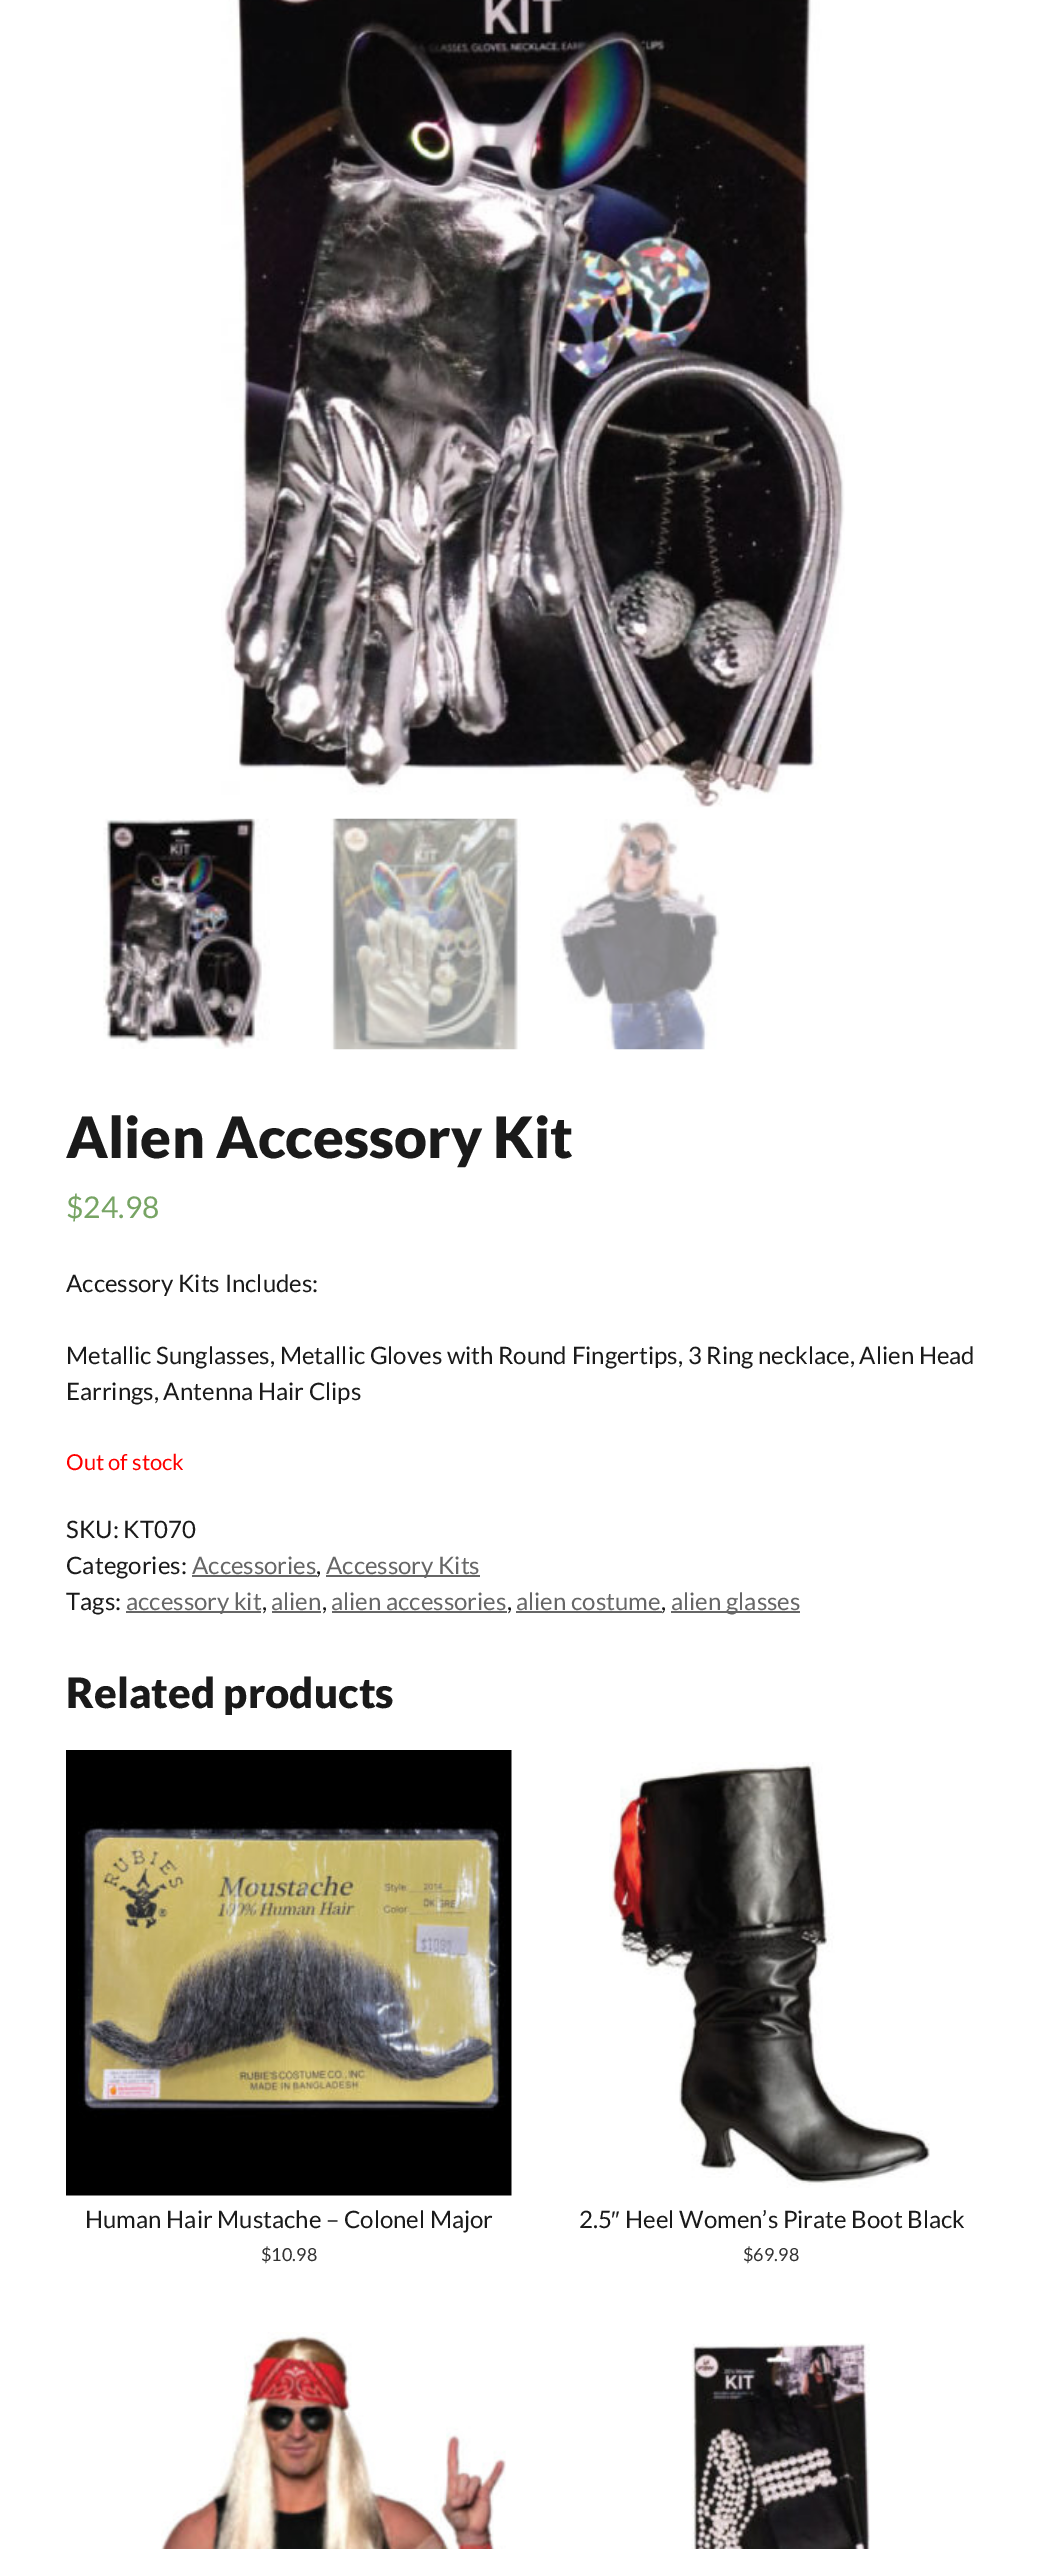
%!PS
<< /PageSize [1060 2549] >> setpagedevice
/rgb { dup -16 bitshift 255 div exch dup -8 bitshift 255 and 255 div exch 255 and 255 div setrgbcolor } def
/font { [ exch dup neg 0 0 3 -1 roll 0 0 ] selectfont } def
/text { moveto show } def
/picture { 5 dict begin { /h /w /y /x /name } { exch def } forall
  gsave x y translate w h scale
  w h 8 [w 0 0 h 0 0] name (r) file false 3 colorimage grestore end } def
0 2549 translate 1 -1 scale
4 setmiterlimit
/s1 { /Lato-Black 57 font 16#1A1A1A rgb } def
/s2 { /Lato-Regular 30 font 16#77A464 rgb } def
/s3 { /Lato-Regular 24 font 16#1A1A1A rgb } def
/s4 { /Lato-Regular 22 font 16#FF0000 rgb } def
/s5 { /Lato-Regular 24 font 16#666666 rgb } def
/s6 { /Lato-Black 42 font 16#1A1A1A rgb } def
/s7 { /Lato-Regular 18 font 16#333333 rgb } def
/s8 { /LiberationSans-Regular 24 font 16#1A1A1A rgb } def
16#FFFFFF rgb
0 0 1060 2549 rectfill
(pic2.raw) 103 818 167 231 picture
(pic1.raw) 221 0 624 819 picture
(pic3.raw) 330 818 191 232 picture
(pic4.raw) 550 819 170 231 picture
s1
(Alien Accessory Kit) 66 1158 text
s2
($24.98) 66 1218 text
s3
(Accessory Kits Includes:) 66 1292 text
(Metallic Sunglasses, Metallic Gloves with Round Fingertips, 3 Ring necklace, Alien Head) 66 1364 text
(Earrings, Antenna Hair Clips) 66 1400 text
s4
(Out of stock) 66 1470 text
s3
(SKU: KT070) 66 1538 text
(Categories:) 66 1574 text
s5
(Accessories) 192 1574 text
192 1575 125 2 rectfill
s3
(,) 316 1574 text
16#666666 rgb
326 1575 154 2 rectfill
(Accessory Kits) 326 1574 text
s3
(Tags:) 66 1610 text
16#666666 rgb
126 1611 135 2 rectfill
(accessory kit) 126 1610 text
s3
(,) 262 1610 text
s5
(alien) 271 1610 text
272 1611 49 2 rectfill
s3
(,) 322 1610 text
s5
(alien accessories) 331 1610 text
332 1611 175 2 rectfill
s3
(,) 507 1610 text
s5
(alien costume) 516 1610 text
516 1611 146 2 rectfill
s3
(,) 661 1610 text
16#666666 rgb
671 1611 129 2 rectfill
(alien glasses) 671 1610 text
s6
(Related products) 66 1708 text
(pic5.raw) 66 1750 446 446 picture
s3
(Human Hair Mustache – Colonel Major) 85 2228 text
s7
($10.98) 261 2261 text
(pic6.raw) 609 1762 321 426 picture
s3
(2.5) 579 2228 text
s8
(″) 611 2228 text
s3
(Heel Women’s Pirate Boot Black) 625 2228 text
s7
($69.98) 743 2261 text
(pic7.raw) 161 2332 345 217 picture
(pic8.raw) 691 2343 179 206 picture
showpage
